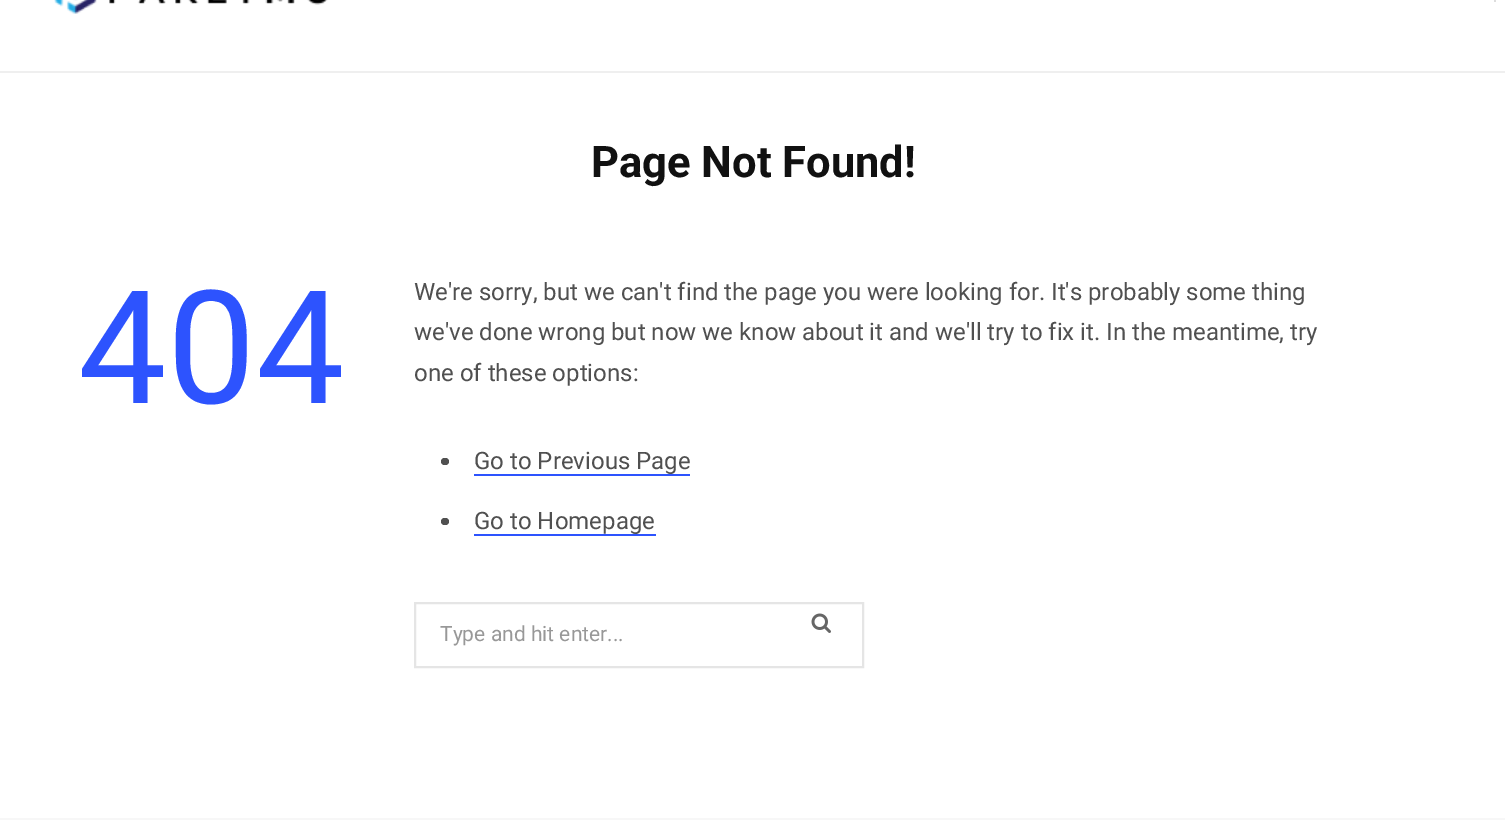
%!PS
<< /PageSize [1505 820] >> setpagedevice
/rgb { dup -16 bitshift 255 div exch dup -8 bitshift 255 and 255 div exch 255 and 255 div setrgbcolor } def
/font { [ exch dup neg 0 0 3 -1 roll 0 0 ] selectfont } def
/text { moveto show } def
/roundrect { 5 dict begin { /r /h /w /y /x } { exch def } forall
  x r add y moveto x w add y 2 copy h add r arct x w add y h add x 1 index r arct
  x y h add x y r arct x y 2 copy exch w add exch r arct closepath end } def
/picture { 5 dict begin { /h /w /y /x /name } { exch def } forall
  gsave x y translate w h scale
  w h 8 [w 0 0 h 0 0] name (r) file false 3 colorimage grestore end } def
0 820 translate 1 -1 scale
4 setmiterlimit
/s1 { /Roboto-Bold 43.5 font 16#111111 rgb } def
/s2 { /Roboto-Regular 158 font 16#2D53FE rgb } def
/s3 { /Roboto-Regular 24 font 16#505050 rgb } def
/s4 { /Roboto-Regular 21 font 16#989898 rgb } def
16#FFFFFF rgb
0 0 1505 820 rectfill
16#EFEFEF rgb
0 71 1505 2 rectfill
(pic1.raw) 54 0 274 14 picture
16#DDDDDD rgb
1494 0 2 2 rectfill
s1
(Page Not Found!) 591 177 text
s2
(404) 78 403 text
s3
(We're sorry, but we can't find the page you were looking for. It's probably some thing) 414 300 text
(we've done wrong but now we know about it and we'll try to fix it. In the meantime, try) 414 340 text
(one of these options:) 414 381 text
441 458 8 7 3.5 roundrect fill
(Go to Previous Page) 474 469 text
16#2D53FE rgb
474 474 216 2 rectfill
16#505050 rgb
441 518 8 7 3.5 roundrect fill
(Go to Homepage) 474 529 text
16#2D53FE rgb
474 534 182 2 rectfill
16#E5E5E5 rgb
2 setlinewidth
415 603 448 64 rectstroke
(pic2.raw) 811 613 20 20 picture
s4
(Type and hit enter...) 440 641 text
16#F7F7F7 rgb
0 818 1505 2 rectfill
showpage
